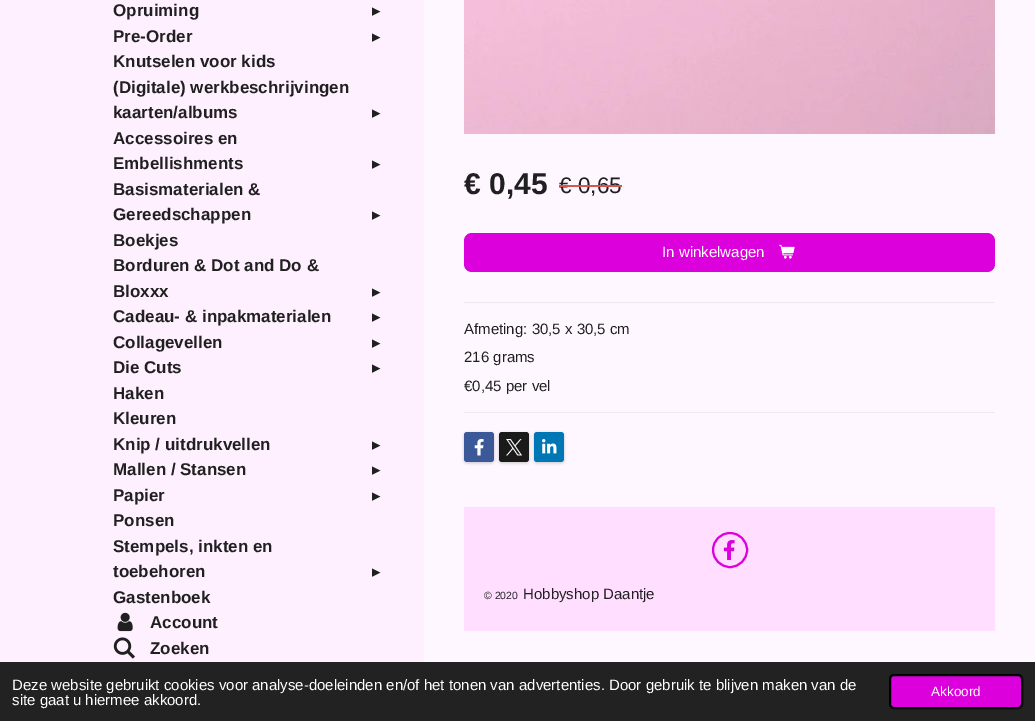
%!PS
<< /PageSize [1035 721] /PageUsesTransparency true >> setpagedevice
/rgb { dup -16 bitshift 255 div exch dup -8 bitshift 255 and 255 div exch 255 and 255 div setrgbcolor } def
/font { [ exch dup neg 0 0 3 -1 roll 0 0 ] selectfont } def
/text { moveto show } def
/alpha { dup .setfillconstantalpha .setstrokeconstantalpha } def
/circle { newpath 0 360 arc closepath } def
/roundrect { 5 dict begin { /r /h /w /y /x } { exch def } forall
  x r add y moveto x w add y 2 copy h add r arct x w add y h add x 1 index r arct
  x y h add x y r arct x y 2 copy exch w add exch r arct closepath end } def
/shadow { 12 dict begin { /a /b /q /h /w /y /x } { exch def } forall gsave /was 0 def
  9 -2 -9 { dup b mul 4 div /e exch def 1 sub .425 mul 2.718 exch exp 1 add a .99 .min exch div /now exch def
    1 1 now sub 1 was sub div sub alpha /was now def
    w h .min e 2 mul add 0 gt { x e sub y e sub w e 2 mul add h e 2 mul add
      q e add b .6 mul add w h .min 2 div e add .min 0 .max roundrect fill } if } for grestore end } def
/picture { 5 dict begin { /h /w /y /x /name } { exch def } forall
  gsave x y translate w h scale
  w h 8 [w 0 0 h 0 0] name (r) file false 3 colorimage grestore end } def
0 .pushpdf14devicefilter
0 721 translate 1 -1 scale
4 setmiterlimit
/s1 { /LiberationSans-Bold 17 font 16#202020 rgb } def
/s2 { /DejaVuSans-Regular 17 font 16#202020 rgb } def
/s3 { /LiberationSans-Bold 30 font 16#202020 rgb } def
/s4 { /LiberationSans-Regular 22.5 font 16#202020 rgb } def
/s5 { /LiberationSans-Regular 15 font 16#FFFFFF rgb } def
/s6 { /LiberationSans-Regular 15 font 16#202020 rgb } def
/s7 { /LiberationSans-Regular 10.5 font 16#202020 rgb } def
/s8 { /LiberationSans-Regular 13.5 font 16#FFFFFF rgb } def
16#FFF7FF rgb
0 0 1035 721 rectfill
16#FEF0FE rgb
0 0 424 662 rectfill
s1
(Opruiming) 113 16 text
s2
(▸) 372 16 text
s1
(Pre-Order) 113 42 text
s2
(▸) 372 42 text
s1
(Knutselen voor kids) 113 67 text
(\(Digitale\) werkbeschrijvingen) 113 93 text
(kaarten/albums) 113 118 text
s2
(▸) 372 118 text
s1
(Accessoires en) 113 144 text
(Embellishments) 113 169 text
s2
(▸) 372 169 text
s1
(Basismaterialen &) 113 195 text
(Gereedschappen) 113 220 text
s2
(▸) 372 220 text
s1
(Boekjes) 113 246 text
(Borduren & Dot and Do &) 113 271 text
(Bloxxx) 113 297 text
s2
(▸) 372 297 text
s1
(Cadeau- & inpakmaterialen) 113 322 text
s2
(▸) 372 322 text
s1
(Collagevellen) 113 348 text
s2
(▸) 372 348 text
s1
(Die Cuts) 113 373 text
s2
(▸) 372 373 text
s1
(Haken) 113 399 text
(Kleuren) 113 424 text
(Knip / uitdrukvellen) 113 450 text
s2
(▸) 372 450 text
s1
(Mallen / Stansen) 113 475 text
s2
(▸) 372 475 text
s1
(Papier) 113 501 text
s2
(▸) 372 501 text
s1
(Ponsen) 113 526 text
(Stempels, inkten en) 113 552 text
(toebehoren) 113 577 text
s2
(▸) 372 577 text
s1
(Gastenboek) 113 603 text
(pic1.raw) 117 612 16 20 picture
(Account) 150 628 text
(pic2.raw) 113 637 22 22 picture
(Zoeken) 150 654 text
(pic3.raw) 464 0 531 134 picture
s3
(€ 0,45) 464 194 text
s4
(€ 0,65) 559 193 text
16#D9534F rgb
559 185 63 2 rectfill
16#DC00DD rgb
464 233 531 39 8 roundrect fill
s5
(In winkelwagen) 662 257 text
(pic4.raw) 779 244 16 15 picture
16#EFE8EF rgb
464 302 531 1 rectfill
s6
(Afmeting: 30,5 x 30,5 cm) 464 334 text
(216 grams) 464 362 text
(€0,45 per vel) 464 391 text
16#EFE8EF rgb
464 412 531 1 rectfill
16#000000 rgb
464 433 30 30 3 1.5 0.2 shadow
16#3B5998 rgb
464 432 30 30 3 roundrect fill
(pic5.raw) 474 439 10 17 picture
16#000000 rgb
499 433 30 30 3 1.5 0.2 shadow
16#1A1A1A rgb
499 432 30 30 3 roundrect fill
(pic6.raw) 506 439 16 17 picture
16#000000 rgb
534 433 30 30 3 1.5 0.2 shadow
16#0077B5 rgb
534 432 30 30 3 roundrect fill
(pic7.raw) 542 439 15 15 picture
16#FFDEFF rgb
464 507 531 124 rectfill
16#DC00DD rgb
2 setlinewidth
730 550 17 circle stroke
(pic8.raw) 723 540 12 20 picture
s7
(© 2020) 484 599 text
s6
(Hobbyshop Daantje) 523 599 text
16#222222 rgb
0 662 1035 59 rectfill
s5
(Deze website gebruikt cookies voor analyse-doeleinden en/of het tonen van advertenties. Door gebruik te blijven maken van de) 12 690 text
(site gaat u hiermee akkoord.) 12 705 text
16#DC00DD rgb
890 675 132 33 4 roundrect gsave fill grestore
16#000000 rgb
stroke
s8
(Akkoord) 931 696 text
.poppdf14devicefilter showpage
